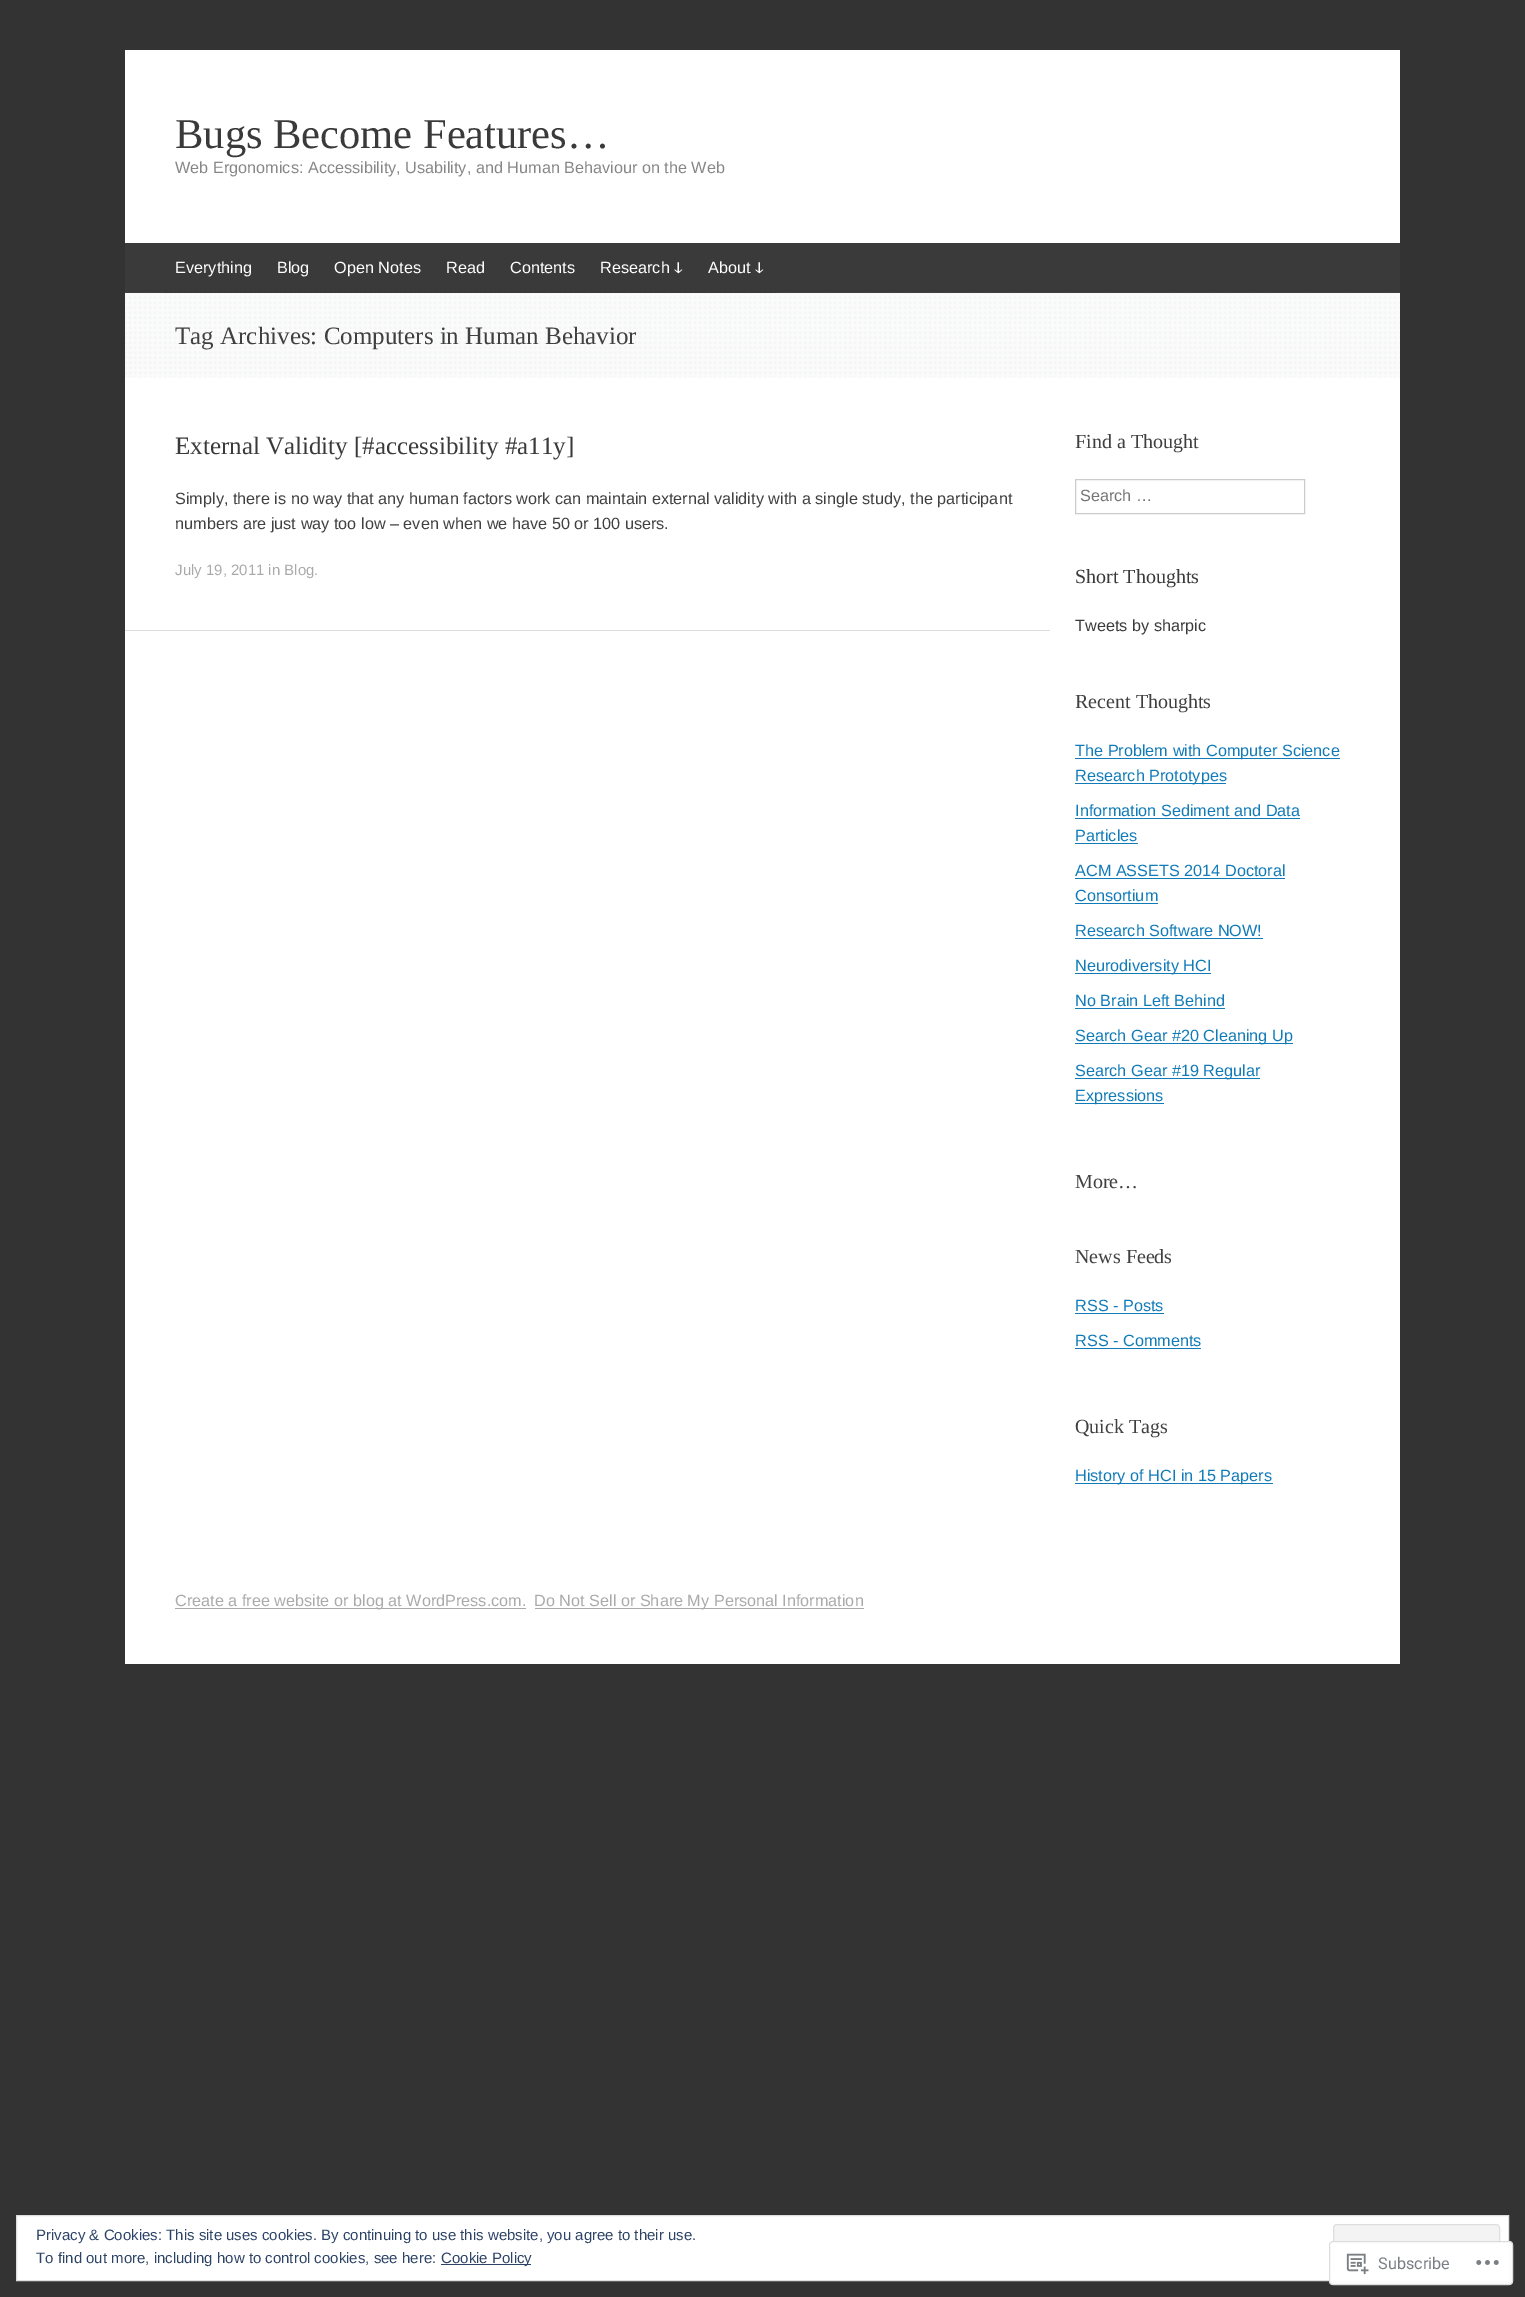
%!PS
<< /PageSize [1525 2297] /PageUsesTransparency true >> setpagedevice
/rgb { dup -16 bitshift 255 div exch dup -8 bitshift 255 and 255 div exch 255 and 255 div setrgbcolor } def
/font { [ exch dup neg 0 0 3 -1 roll 0 0 ] selectfont } def
/text { moveto show } def
/alpha { dup .setfillconstantalpha .setstrokeconstantalpha } def
/roundrect { 5 dict begin { /r /h /w /y /x } { exch def } forall
  x r add y moveto x w add y 2 copy h add r arct x w add y h add x 1 index r arct
  x y h add x y r arct x y 2 copy exch w add exch r arct closepath end } def
/picture { 5 dict begin { /h /w /y /x /name } { exch def } forall
  gsave x y translate w h scale
  w h 8 [w 0 0 h 0 0] name (r) file false 3 colorimage grestore end } def
0 .pushpdf14devicefilter
0 2297 translate 1 -1 scale
4 setmiterlimit
/s1 { /LiberationSerif-Regular 42.5 font 16#3A3A3A rgb } def
/s2 { /LiberationSans-Regular 16.25 font 16#878787 rgb } def
/s3 { /LiberationSans-Regular 16.25 font 16#FFFFFF rgb } def
/s4 { /FreeSerif-Regular 16.25 font 16#FFFFFF rgb } def
/s5 { /LiberationSerif-Regular 25 font 16#404040 rgb } def
/s6 { /LiberationSerif-Regular 25 font 16#3A3A3A rgb } def
/s7 { /LiberationSans-Regular 16.25 font 16#404040 rgb } def
/s8 { /LiberationSans-Regular 15 font 16#AAAAAA rgb } def
/s9 { /LiberationSerif-Regular 20 font 16#404040 rgb } def
/s10 { /LiberationSans-Regular 16.25 font 16#757575 rgb } def
/s11 { /LiberationSerif-Regular 20 font 16#3A3A3A rgb } def
/s12 { /LiberationSans-Regular 16.25 font 16#3A3A3A rgb } def
/s13 { /LiberationSans-Regular 16.25 font 16#117BB8 rgb } def
/s14 { /LiberationSans-Regular 16.25 font 16#AAAAAA rgb } def
/s15 { /LiberationSans-Regular 15 font 16#2E4467 rgb } def
/s16 { /Roboto-Regular 16.25 font 16#7A7E84 rgb } def
16#333333 rgb
0 0 1525 2297 rectfill
16#FFFFFF rgb
125 50 1275 1614 rectfill
s1
(Bugs Become Features…) 175 148 text
s2
(Web Ergonomics: Accessibility, Usability, and Human Behaviour on the Web) 175 173 text
16#3A3A3A rgb
125 243 1275 50 rectfill
(pic1.raw) 125 292 1275 86 picture
163 292 613 1 rectfill
s3
(Everything) 175 273 text
(Blog) 277 273 text
(Open Notes) 334 273 text
(Read) 446 273 text
(Contents) 510 273 text
(Research) 600 273 text
s4
(ↆ) 674 273 text
s3
(About) 708 273 text
s4
(ↆ) 755 273 text
s5
(Tag Archives: Computers in Human Behavior) 175 344 text
16#DDDDDD rgb
125 630 925 1 rectfill
s6
(External Validity [#accessibility #a11y]) 175 454 text
s7
(Simply, there is no way that any human factors work can maintain external validity with a single study, the participant) 175 504 text
(numbers are just way too low – even when we have 50 or 100 users.) 175 529 text
s8
(July 19, 2011 in Blog.) 175 575 text
s9
(Find a Thought) 1075 448 text
16#CCCCCC rgb
1075.5 479.5 229 34 rectstroke
s10
(Search …) 1080 501 text
s11
(Short Thoughts) 1075 583 text
s12
(Tweets by sharpic) 1075 631 text
s9
(Recent Thoughts) 1075 708 text
16#117BB8 rgb
1075 758 265 1 rectfill
s13
(The Problem with Computer Science) 1075 756 text
1075 783 151 1 rectfill
(Research Prototypes) 1075 781 text
(Information Sediment and Data) 1075 816 text
1075 818 225 1 rectfill
(Particles) 1075 841 text
1075 843 63 1 rectfill
(ACM ASSETS 2014 Doctoral) 1075 876 text
1075 878 210 1 rectfill
(Consortium) 1075 901 text
1075 903 83 1 rectfill
(Research Software NOW!) 1075 936 text
1075 938 188 1 rectfill
1075 973 136 1 rectfill
(Neurodiversity HCI) 1075 971 text
(No Brain Left Behind) 1075 1006 text
1075 1008 150 1 rectfill
1075 1043 218 1 rectfill
(Search Gear #20 Cleaning Up) 1075 1041 text
1075 1078 185 1 rectfill
(Search Gear #19 Regular) 1075 1076 text
1075 1103 89 1 rectfill
(Expressions) 1075 1101 text
s9
(More…) 1075 1188 text
(News Feeds) 1075 1263 text
s13
(RSS - Posts) 1075 1311 text
1075 1313 89 1 rectfill
(RSS - Comments) 1075 1346 text
1075 1348 126 1 rectfill
s9
(Quick Tags) 1075 1433 text
16#117BB8 rgb
1075 1483 198 1 rectfill
s13
(History of HCI in 15 Papers) 1075 1481 text
16#AAAAAA rgb
175 1608 351 1 rectfill
(Create a free website or blog at WordPress.com.) 175 1606 text
535 1608 329 1 rectfill
(Do Not Sell or Share My Personal Information) 534 1606 text
16#FFFFFF rgb
16.5 2215.5 moveto 1508.5 2215.5 lineto 1508.5 2280.5 lineto 16.5 2280.5 lineto closepath gsave fill grestore
16#DEDEDE rgb
stroke
s15
(Privacy & Cookies: This site uses cookies. By continuing to use this website, you agree to their use.) 36 2240 text
16#F3F3F3 rgb
1333.5 2224.5 166 48 3.5 roundrect gsave fill grestore
16#DEDEDE rgb
stroke
s15
(To find out more, including how to control cookies, see here:) 36 2263 text
441 2264 90 1 rectfill
(Cookie Policy) 441 2263 text
0.98 alpha
16#FFFFFF rgb
1329 2241 184 44 4 roundrect fill
16#DCDCDE rgb
1329.5 2241.5 183 43 3.5 roundrect stroke
1 alpha
(pic2.raw) 1346 2253 23 22 picture
s16
(Subscribe) 1378 2269 text
(pic3.raw) 1476 2260 23 5 picture
.poppdf14devicefilter showpage
